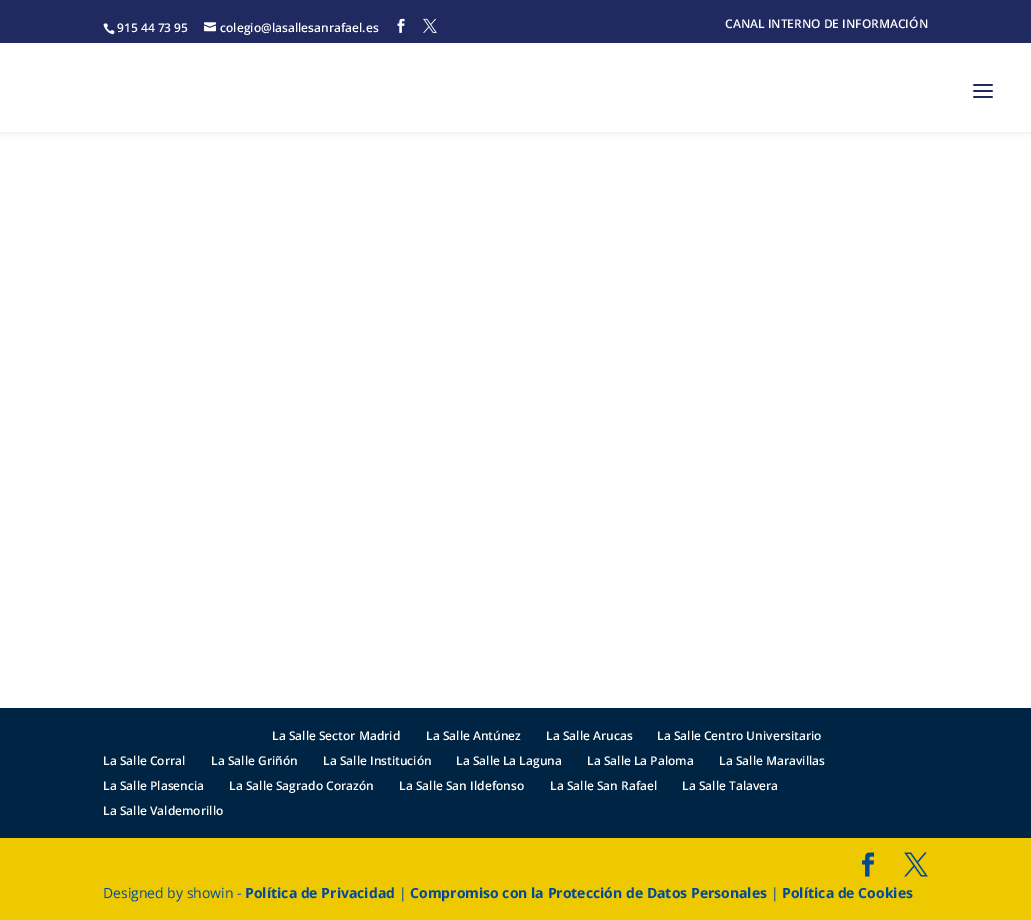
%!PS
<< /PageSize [1031 920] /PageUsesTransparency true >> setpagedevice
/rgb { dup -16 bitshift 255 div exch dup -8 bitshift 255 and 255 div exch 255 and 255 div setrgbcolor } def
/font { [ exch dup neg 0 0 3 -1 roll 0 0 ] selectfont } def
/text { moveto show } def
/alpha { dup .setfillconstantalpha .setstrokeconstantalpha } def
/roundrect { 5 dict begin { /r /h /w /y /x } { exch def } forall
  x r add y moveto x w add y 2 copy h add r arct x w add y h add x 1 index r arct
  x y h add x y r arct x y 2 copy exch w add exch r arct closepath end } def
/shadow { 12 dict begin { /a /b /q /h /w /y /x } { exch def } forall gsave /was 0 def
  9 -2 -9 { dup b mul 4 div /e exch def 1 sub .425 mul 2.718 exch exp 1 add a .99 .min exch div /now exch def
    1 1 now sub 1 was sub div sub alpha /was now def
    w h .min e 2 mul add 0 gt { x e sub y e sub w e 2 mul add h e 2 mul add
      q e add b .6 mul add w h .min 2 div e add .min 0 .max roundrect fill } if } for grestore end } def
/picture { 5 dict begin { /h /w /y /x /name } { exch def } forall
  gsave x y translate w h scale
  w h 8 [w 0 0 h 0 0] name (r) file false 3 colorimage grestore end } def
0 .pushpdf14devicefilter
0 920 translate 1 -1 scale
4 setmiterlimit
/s1 { /OpenSans-SemiBold 12 font 16#FFFFFF rgb } def
/s2 { /OpenSans-Regular 14 font 16#004A99 rgb } def
/s3 { /OpenSans-Bold 14 font 16#004A99 rgb } def
16#FFFFFF rgb
0 0 1031 920 rectfill
16#000000 rgb
0 43 1031 89 0 3.5 0.1 shadow
16#202A60 rgb
0 0 1031 43 rectfill
(pic1.raw) 103 23 12 12 picture
s1
(915 44 73 95) 117 32 text
(pic2.raw) 204 22 12 10 picture
(colegio@lasallesanrafael.es) 220 32 text
(pic3.raw) 397 18 8 15 picture
(pic4.raw) 423 18 14 15 picture
(CANAL INTERNO DE INFORMACIÓN) 725 28 text
0 43 1031 89 rectfill
(pic5.raw) 973 84 20 14 picture
16#002444 rgb
0 708 1031 130 rectfill
s1
(La Salle Sector Madrid) 272 740 text
(La Salle Antúnez) 426 740 text
(La Salle Arucas) 546 740 text
(La Salle Centro Universitario) 657 740 text
(La Salle Corral) 103 765 text
(La Salle Griñón) 211 765 text
(La Salle Institución) 323 765 text
(La Salle La Laguna) 456 765 text
(La Salle La Paloma) 587 765 text
(La Salle Maravillas) 719 765 text
(La Salle Plasencia) 103 790 text
(La Salle Sagrado Corazón) 229 790 text
(La Salle San Ildefonso) 399 790 text
(La Salle San Rafael) 550 790 text
(La Salle Talavera) 682 790 text
(La Salle Valdemorillo) 103 815 text
16#EEC900 rgb
0 838 1031 82 rectfill
(pic6.raw) 862 852 13 25 picture
(pic7.raw) 904 852 24 25 picture
s2
(Designed by showin -) 103 898 text
s3
(Política de Privacidad) 245 898 text
s2
(|) 399 898 text
s3
(Compromiso con la Protección de Datos Personales) 410 898 text
s2
(|) 771 898 text
s3
(Política de Cookies) 782 898 text
.poppdf14devicefilter showpage
